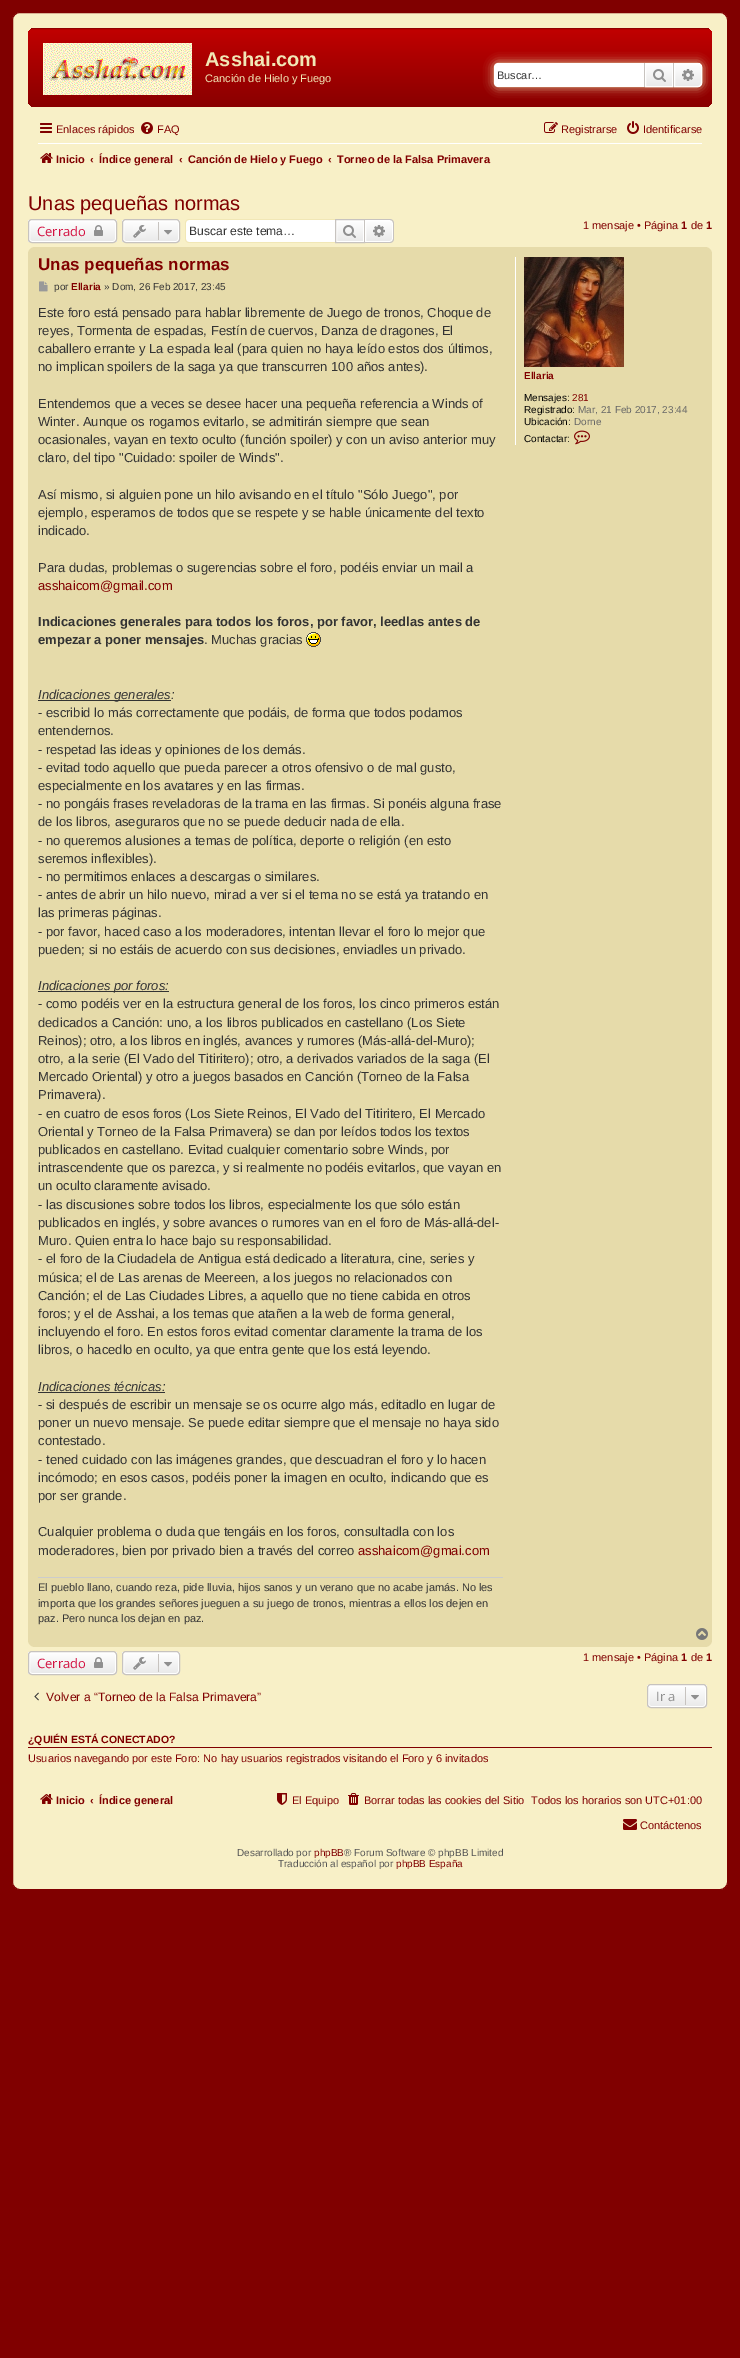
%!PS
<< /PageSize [740 2358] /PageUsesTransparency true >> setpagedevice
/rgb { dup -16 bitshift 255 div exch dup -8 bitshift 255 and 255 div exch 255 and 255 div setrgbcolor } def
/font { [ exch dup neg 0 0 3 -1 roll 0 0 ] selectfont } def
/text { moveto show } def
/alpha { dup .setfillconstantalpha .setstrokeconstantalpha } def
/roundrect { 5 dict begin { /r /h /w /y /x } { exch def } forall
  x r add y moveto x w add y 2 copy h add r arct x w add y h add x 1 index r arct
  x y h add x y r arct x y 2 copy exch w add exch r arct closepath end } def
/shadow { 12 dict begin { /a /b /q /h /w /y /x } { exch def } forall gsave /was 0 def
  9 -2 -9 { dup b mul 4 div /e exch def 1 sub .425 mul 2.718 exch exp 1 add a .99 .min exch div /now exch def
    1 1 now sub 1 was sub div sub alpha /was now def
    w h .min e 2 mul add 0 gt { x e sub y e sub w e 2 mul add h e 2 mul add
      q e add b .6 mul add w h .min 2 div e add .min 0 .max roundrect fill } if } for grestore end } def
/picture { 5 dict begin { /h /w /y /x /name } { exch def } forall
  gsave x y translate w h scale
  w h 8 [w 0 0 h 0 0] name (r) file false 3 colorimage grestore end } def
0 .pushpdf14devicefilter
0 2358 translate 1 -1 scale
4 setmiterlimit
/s1 { /LiberationSans-Bold 20 font 16#F1E7B6 rgb } def
/s2 { /LiberationSans-Regular 11 font 16#F1E7B6 rgb } def
/s3 { /LiberationSans-Regular 11 font 16#333333 rgb } def
/s4 { /LiberationSans-Regular 11 font 16#800000 rgb } def
/s5 { /LiberationSans-Bold 11 font 16#800000 rgb } def
/s6 { /LiberationSans-Regular 20 font 16#800000 rgb } def
/s7 { /OpenSans-Regular 13 font 16#D31141 rgb } def
/s8 { /LiberationSans-Regular 12.1 font 16#333333 rgb } def
/s9 { /LiberationSans-Bold 17 font 16#800000 rgb } def
/s10 { /LiberationSans-Regular 10 font 16#333333 rgb } def
/s11 { /LiberationSans-Bold 10 font 16#800000 rgb } def
/s12 { /LiberationSans-Regular 13 font 16#333333 rgb } def
/s13 { /LiberationSans-Regular 13 font 16#800000 rgb } def
/s14 { /LiberationSans-Bold 13 font 16#333333 rgb } def
/s15 { /LiberationSans-Italic 13 font 16#333333 rgb } def
/s16 { /LiberationSans-Regular 10 font 16#000000 rgb } def
/s17 { /LiberationSans-Regular 10 font 16#800000 rgb } def
/s18 { /LiberationSans-Regular 10 font 16#666666 rgb } def
/s19 { /LiberationSans-Regular 12.1 font 16#800000 rgb } def
/s20 { /OpenSans-Regular 13 font 16#8F8F8F rgb } def
/s21 { /LiberationSans-Bold 10.5 font 16#800000 rgb } def
/s22 { /LiberationSans-Regular 10 font 16#555555 rgb } def
16#800000 rgb
0 0 740 2358 rectfill
16#F8F0C7 rgb
12.5 12.5 715 1877 7.5 roundrect gsave fill grestore
16#800000 rgb
stroke
gsave 28 28 684 79 7 roundrect clip newpath
<< /ShadingType 2 /ColorSpace /DeviceRGB /Coords [370 28 370 120] /Extend [true true] /Function << /FunctionType 3 /Domain [0 1] /Functions [<< /FunctionType 2 /Domain [0 1] /C0 [0.502 0 0] /C1 [0.753 0 0] /N 1 >> << /FunctionType 2 /Domain [0 1] /C0 [0.753 0 0] /C1 [0.502 0 0] /N 1 >>] /Bounds [0.02] /Encode [0 1 0 1] >> >> shfill grestore
(pic1.raw) 43 43 149 52 picture
s1
(Asshai.com) 205 66 text
s2
(Canción de Hielo y Fuego) 205 82 text
16#E6DBAA rgb
494 63 208 24 4 5 1 shadow
16#FFFFFF rgb
498 63 moveto 644 63 lineto 644 87 lineto 498 87 lineto 496 87 494 85 494 83 curveto 494 67 lineto 494 65 496 63 498 63 curveto closepath fill
s3
(Buscar…) 497 79 text
gsave 646 64 moveto 672 64 lineto 672 86 lineto 646 86 lineto closepath clip newpath
<< /ShadingType 2 /ColorSpace /DeviceRGB /Coords [659 63 659 87] /Extend [true true] /Function << /FunctionType 2 /Domain [0 1] /C0 [1 1 1] /C1 [0.914 0.914 0.914] /N 1 >> >> shfill grestore
16#FFFFFF rgb
645.5 63.5 27 23 rectstroke
16#C7C3BF rgb
673 63 1 24 rectfill
644 63 1 24 rectfill
(pic2.raw) 653 69 13 13 picture
gsave 674.5 63.5 moveto 698 63.5 lineto 700 63.5 701.5 65 701.5 67 curveto 701.5 83 lineto 701.5 85 700 86.5 698 86.5 curveto 674.5 86.5 lineto closepath clip newpath
<< /ShadingType 2 /ColorSpace /DeviceRGB /Coords [688 63 688 87] /Extend [true true] /Function << /FunctionType 2 /Domain [0 1] /C0 [1 1 1] /C1 [0.914 0.914 0.914] /N 1 >> >> shfill grestore
16#FFFFFF rgb
674.5 63.5 moveto 698 63.5 lineto 700 63.5 701.5 65 701.5 67 curveto 701.5 83 lineto 701.5 85 700 86.5 698 86.5 curveto 674.5 86.5 lineto closepath stroke
(pic3.raw) 682 69 12 12 picture
(pic4.raw) 40 123 12 10 picture
s4
(Enlaces rápidos) 56 133 text
(pic5.raw) 141 122 12 12 picture
(FAQ) 157 133 text
(pic6.raw) 544 122 14 11 picture
(Registrarse) 561 133 text
(pic7.raw) 627 121 12 13 picture
(Identificarse) 643 133 text
16#FFFFFF rgb
38 143 664 1 rectfill
(pic8.raw) 40 153 13 10 picture
s5
(Inicio) 56 163 text
(‹) 90 163 text
(Índice general) 99 163 text
(‹) 179 163 text
(Canción de Hielo y Fuego) 188 163 text
(‹) 328 163 text
(Torneo de la Falsa Primavera) 337 163 text
s6
(Unas pequeñas normas) 28 210 text
gsave
28 219 89 24 4 roundrect clip newpath
gsave 28 220 moveto 117 220 lineto 117 242 lineto 28 242 lineto closepath clip newpath
<< /ShadingType 2 /ColorSpace /DeviceRGB /Coords [73 220 73 242] /Extend [true true] /Function << /FunctionType 2 /Domain [0 1] /C0 [1 1 1] /C1 [0.914 0.914 0.914] /N 1 >> >> shfill grestore
grestore
16#FFFFFF rgb
29.5 220.5 86 21 2.5 roundrect stroke
16#C7C3BF rgb
28.5 219.5 88 23 3.5 roundrect stroke
s7
(Cerrado) 37 236 text
(pic9.raw) 94 225 9 11 picture
gsave
122 219 58 24 4 roundrect clip newpath
gsave 122 220 moveto 180 220 lineto 180 242 lineto 122 242 lineto closepath clip newpath
<< /ShadingType 2 /ColorSpace /DeviceRGB /Coords [151 220 151 242] /Extend [true true] /Function << /FunctionType 2 /Domain [0 1] /C0 [1 1 1] /C1 [0.914 0.914 0.914] /N 1 >> >> shfill grestore
grestore
16#FFFFFF rgb
123.5 220.5 55 21 2.5 roundrect stroke
16#C7C3BF rgb
122.5 219.5 57 23 3.5 roundrect stroke
(pic10.raw) 133 225 13 13 picture
158 222 1 18 rectfill
(pic11.raw) 164 230 8 5 picture
16#FFFFFF rgb
189 220 moveto 335 220 lineto 335 242 lineto 189 242 lineto 187.5 242 186 240.5 186 239 curveto 186 223 lineto 186 221.5 187.5 220 189 220 curveto closepath fill
16#F1E7B6 rgb
189 219 moveto 335 219 lineto 335 243 lineto 189 243 lineto 187 243 185 241 185 239 curveto 185 223 lineto 185 221 187 219 189 219 curveto closepath 189 220 moveto 335 220 lineto 335 242 lineto 189 242 lineto 187 242 186 241 186 239 curveto 186 223 lineto 186 221 187 220 189 220 curveto closepath eofill
s8
(Buscar este tema…) 189 235 text
gsave 337 221 moveto 363 221 lineto 363 241 lineto 337 241 lineto closepath clip newpath
<< /ShadingType 2 /ColorSpace /DeviceRGB /Coords [350 220 350 242] /Extend [true true] /Function << /FunctionType 2 /Domain [0 1] /C0 [1 1 1] /C1 [0.914 0.914 0.914] /N 1 >> >> shfill grestore
16#FFFFFF rgb
336.5 220.5 27 21 rectstroke
16#C7C3BF rgb
335.5 219.5 29 23 rectstroke
(pic12.raw) 343 225 13 13 picture
gsave 365.5 220.5 moveto 390 220.5 lineto 391.5 220.5 392.5 221.5 392.5 223 curveto 392.5 239 lineto 392.5 240.5 391.5 241.5 390 241.5 curveto 365.5 241.5 lineto closepath clip newpath
<< /ShadingType 2 /ColorSpace /DeviceRGB /Coords [379 220 379 242] /Extend [true true] /Function << /FunctionType 2 /Domain [0 1] /C0 [1 1 1] /C1 [0.914 0.914 0.914] /N 1 >> >> shfill grestore
16#FFFFFF rgb
365.5 220.5 moveto 390 220.5 lineto 391.5 220.5 392.5 221.5 392.5 223 curveto 392.5 239 lineto 392.5 240.5 391.5 241.5 390 241.5 curveto 365.5 241.5 lineto closepath stroke
16#C7C3BF rgb
365 219 moveto 390 219 lineto 392 219 394 221 394 223 curveto 394 239 lineto 394 241 392 243 390 243 curveto 365 243 lineto closepath 365 220 moveto 390 220 lineto 391.5 220 393 221.5 393 223 curveto 393 239 lineto 393 240.5 391.5 242 390 242 curveto 365 242 lineto closepath eofill
(pic13.raw) 373 225 12 12 picture
s4
(1 mensaje • Página) 583 229 text
s5
(1) 681 229 text
s4
(de) 691 229 text
s5
(1) 706 229 text
16#E6DBAA rgb
28 247 684 1400 7 roundrect fill
s9
(Unas pequeñas normas) 38 270 text
(pic14.raw) 39 281 9 11 picture
s10
(por) 54 290 text
s11
(Ellaria) 71 290 text
s10
(» Dom, 26 Feb 2017, 23:45) 104 290 text
s12
(Este foro está pensado para hablar libremente de Juego de tronos, Choque de) 38 317 text
(reyes, Tormenta de espadas, Festín de cuervos, Danza de dragones, El) 38 335 text
(caballero errante y La espada leal \(para quien no haya leído estos dos últimos,) 38 353 text
(no implican spoilers de la saga ya que transcurren 100 años antes\).) 38 371 text
(Entendemos que a veces se desee hacer una pequeña referencia a Winds of) 38 408 text
(Winter. Aunque os rogamos evitarlo, se admitirán siempre que sean) 38 426 text
(ocasionales, vayan en texto oculto \(función spoiler\) y con un aviso anterior muy) 38 444 text
(claro, del tipo "Cuidado: spoiler de Winds".) 38 462 text
(Así mismo, si alguien pone un hilo avisando en el título "Sólo Juego", por) 38 499 text
(ejemplo, esperamos de todos que se respete y se hable únicamente del texto) 38 517 text
(indicado.) 38 535 text
(Para dudas, problemas o sugerencias sobre el foro, podéis enviar un mail a) 38 572 text
s13
(asshaicom@gmail.com) 38 590 text
s14
(Indicaciones generales para todos los foros, por favor, leedlas antes de) 38 626 text
(empezar a poner mensajes) 38 644 text
s12
(. Muchas gracias) 204 644 text
(pic15.raw) 306 632 15 15 picture
38 700 133 1 rectfill
s15
(Indicaciones generales:) 38 699 text
s12
(- escribid lo más correctamente que podáis, de forma que todos podamos) 38 717 text
(entendernos.) 38 735 text
(- respetad las ideas y opiniones de los demás.) 38 754 text
(- evitad todo aquello que pueda parecer a otros ofensivo o de mal gusto,) 38 772 text
(especialmente en los avatares y en las firmas.) 38 790 text
(- no pongáis frases reveladoras de la trama en las firmas. Si ponéis alguna frase) 38 808 text
(de los libros, aseguraros que no se puede deducir nada de ella.) 38 826 text
(- no queremos alusiones a temas de política, deporte o religión \(en esto) 38 845 text
(seremos inflexibles\).) 38 863 text
(- no permitimos enlaces a descargas o similares.) 38 881 text
(- antes de abrir un hilo nuevo, mirad a ver si el tema no se está ya tratando en) 38 899 text
(las primeras páginas.) 38 917 text
(- por favor, haced caso a los moderadores, intentan llevar el foro lo mejor que) 38 936 text
(pueden; si no estáis de acuerdo con sus decisiones, enviadles un privado.) 38 954 text
38 991 131 1 rectfill
s15
(Indicaciones por foros:) 38 990 text
s12
(- como podéis ver en la estructura general de los foros, los cinco primeros están) 38 1008 text
(dedicados a Canción: uno, a los libros publicados en castellano \(Los Siete) 38 1027 text
(Reinos\); otro, a los libros en inglés, avances y rumores \(Más-allá-del-Muro\);) 38 1045 text
(otro, a la serie \(El Vado del Titiritero\); otro, a derivados variados de la saga \(El) 38 1063 text
(Mercado Oriental\) y otro a juegos basados en Canción \(Torneo de la Falsa) 38 1081 text
(Primavera\).) 38 1099 text
(- en cuatro de esos foros \(Los Siete Reinos, El Vado del Titiritero, El Mercado) 38 1118 text
(Oriental y Torneo de la Falsa Primavera\) se dan por leídos todos los textos) 38 1136 text
(publicados en castellano. Evitad cualquier comentario sobre Winds, por) 38 1154 text
(intrascendente que os parezca, y si realmente no podéis evitarlos, que vayan en) 38 1172 text
(un oculto claramente avisado.) 38 1190 text
(- las discusiones sobre todos los libros, especialmente los que sólo están) 38 1209 text
(publicados en inglés, y sobre avances o rumores van en el foro de Más-allá-del-) 38 1227 text
(Muro. Quien entra lo hace bajo su responsabilidad.) 38 1245 text
(- el foro de la Ciudadela de Antigua está dedicado a literatura, cine, series y) 38 1263 text
(música; el de Las arenas de Meereen, a los juegos no relacionados con) 38 1282 text
(Canción; el de Las Ciudades Libres, a aquello que no tiene cabida en otros) 38 1300 text
(foros; y el de Asshai, a los temas que atañen a la web de forma general,) 38 1318 text
(incluyendo el foro. En estos foros evitad comentar claramente la trama de los) 38 1336 text
(libros, o hacedlo en oculto, ya que entra gente que los está leyendo.) 38 1354 text
s15
(Indicaciones técnicas:) 38 1391 text
38 1392 127 1 rectfill
s12
(- si después de escribir un mensaje se os ocurre algo más, editadlo en lugar de) 38 1409 text
(poner un nuevo mensaje. Se puede editar siempre que el mensaje no haya sido) 38 1427 text
(contestado.) 38 1445 text
(- tened cuidado con las imágenes grandes, que descuadran el foro y lo hacen) 38 1464 text
(incómodo; en esos casos, podéis poner la imagen en oculto, indicando que es) 38 1482 text
(por ser grande.) 38 1500 text
(Cualquier problema o duda que tengáis en los foros, consultadla con los) 38 1536 text
(moderadores, bien por privado bien a través del correo) 38 1555 text
s13
(asshaicom@gmai.com) 358 1555 text
16#CCCCCC rgb
38 1577 465 1 rectfill
s3
(El pueblo llano, cuando reza, pide lluvia, hijos sanos y un verano que no acabe jamás. No les) 38 1591 text
(importa que los grandes señores jueguen a su juego de tronos, mientras a ellos los dejen en) 38 1607 text
(paz. Pero nunca los dejan en paz.) 38 1622 text
16#FFFFFF rgb
515 257 1 188 rectfill
(pic16.raw) 524 257 100 110 picture
s11
(Ellaria) 524 379 text
s16
(Mensajes:) 524 401 text
s17
(281) 572 401 text
s16
(Registrado:) 524 413 text
s18
(Mar, 21 Feb 2017, 23:44) 578 413 text
s16
(Ubicación:) 524 425 text
s18
(Dorne) 574 425 text
s16
(Contactar:) 524 442 text
(pic17.raw) 574 430 16 15 picture
(pic18.raw) 696 1628 12 12 picture
gsave
28 1651 89 24 4 roundrect clip newpath
gsave 28 1652 moveto 117 1652 lineto 117 1674 lineto 28 1674 lineto closepath clip newpath
<< /ShadingType 2 /ColorSpace /DeviceRGB /Coords [73 1652 73 1674] /Extend [true true] /Function << /FunctionType 2 /Domain [0 1] /C0 [1 1 1] /C1 [0.914 0.914 0.914] /N 1 >> >> shfill grestore
grestore
16#FFFFFF rgb
29.5 1652.5 86 21 2.5 roundrect stroke
16#C7C3BF rgb
28.5 1651.5 88 23 3.5 roundrect stroke
s7
(Cerrado) 37 1668 text
(pic9.raw) 94 1657 9 11 picture
gsave
122 1651 58 24 4 roundrect clip newpath
gsave 122 1652 moveto 180 1652 lineto 180 1674 lineto 122 1674 lineto closepath clip newpath
<< /ShadingType 2 /ColorSpace /DeviceRGB /Coords [151 1652 151 1674] /Extend [true true] /Function << /FunctionType 2 /Domain [0 1] /C0 [1 1 1] /C1 [0.914 0.914 0.914] /N 1 >> >> shfill grestore
grestore
16#FFFFFF rgb
123.5 1652.5 55 21 2.5 roundrect stroke
16#C7C3BF rgb
122.5 1651.5 57 23 3.5 roundrect stroke
(pic10.raw) 133 1657 13 13 picture
158 1654 1 18 rectfill
(pic11.raw) 164 1662 8 5 picture
s4
(1 mensaje • Página) 583 1661 text
s5
(1) 681 1661 text
s4
(de) 691 1661 text
s5
(1) 706 1661 text
(pic19.raw) 34 1692 5 9 picture
s19
(Volver a “Torneo de la Falsa Primavera”) 46 1701 text
gsave
647 1684 60 24 4 roundrect clip newpath
gsave 647 1685 moveto 707 1685 lineto 707 1707 lineto 647 1707 lineto closepath clip newpath
<< /ShadingType 2 /ColorSpace /DeviceRGB /Coords [677 1685 677 1707] /Extend [true true] /Function << /FunctionType 2 /Domain [0 1] /C0 [1 1 1] /C1 [0.914 0.914 0.914] /N 1 >> >> shfill grestore
grestore
16#FFFFFF rgb
648.5 1685.5 57 21 2.5 roundrect stroke
16#C7C3BF rgb
647.5 1684.5 59 23 3.5 roundrect stroke
s20
(Ir a) 656 1701 text
16#C7C3BF rgb
685 1687 1 18 rectfill
(pic11.raw) 691 1695 8 5 picture
16#800000 rgb
28 1747 684 1 rectfill
s21
(¿QUIÉN ESTÁ CONECTADO?) 28 1743 text
s4
(Usuarios navegando por este Foro: No hay usuarios registrados visitando el Foro y 6 invitados) 28 1762 text
(pic8.raw) 40 1794 13 10 picture
s5
(Inicio) 56 1804 text
(‹) 90 1804 text
(Índice general) 99 1804 text
(pic20.raw) 277 1793 10 12 picture
s4
(El Equipo) 292 1804 text
(pic21.raw) 348 1793 11 12 picture
(Borrar todas las cookies del Sitio) 364 1804 text
(Todos los horarios son UTC+01:00) 531 1804 text
(pic22.raw) 623 1819 14 11 picture
(Contáctenos) 640 1829 text
s22
(Desarrollado por) 237 1856 text
s17
(phpBB) 314 1856 text
s22
(® Forum Software © phpBB Limited) 344 1856 text
(Traducción al español por) 278 1867 text
s17
(phpBB España) 396 1867 text
.poppdf14devicefilter showpage
